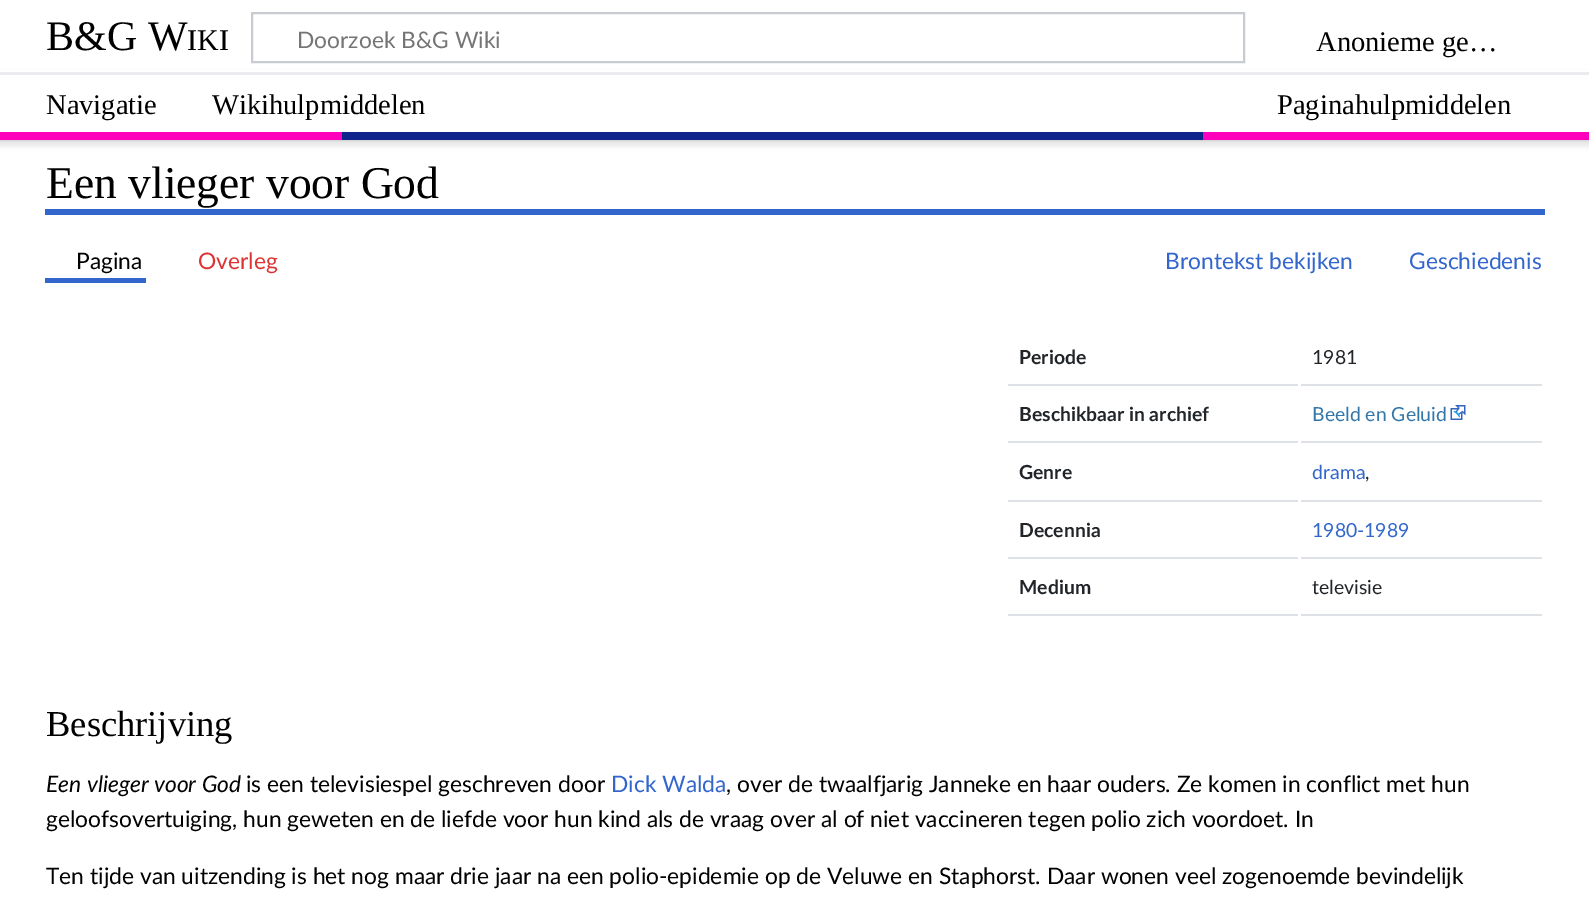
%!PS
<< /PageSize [1589 899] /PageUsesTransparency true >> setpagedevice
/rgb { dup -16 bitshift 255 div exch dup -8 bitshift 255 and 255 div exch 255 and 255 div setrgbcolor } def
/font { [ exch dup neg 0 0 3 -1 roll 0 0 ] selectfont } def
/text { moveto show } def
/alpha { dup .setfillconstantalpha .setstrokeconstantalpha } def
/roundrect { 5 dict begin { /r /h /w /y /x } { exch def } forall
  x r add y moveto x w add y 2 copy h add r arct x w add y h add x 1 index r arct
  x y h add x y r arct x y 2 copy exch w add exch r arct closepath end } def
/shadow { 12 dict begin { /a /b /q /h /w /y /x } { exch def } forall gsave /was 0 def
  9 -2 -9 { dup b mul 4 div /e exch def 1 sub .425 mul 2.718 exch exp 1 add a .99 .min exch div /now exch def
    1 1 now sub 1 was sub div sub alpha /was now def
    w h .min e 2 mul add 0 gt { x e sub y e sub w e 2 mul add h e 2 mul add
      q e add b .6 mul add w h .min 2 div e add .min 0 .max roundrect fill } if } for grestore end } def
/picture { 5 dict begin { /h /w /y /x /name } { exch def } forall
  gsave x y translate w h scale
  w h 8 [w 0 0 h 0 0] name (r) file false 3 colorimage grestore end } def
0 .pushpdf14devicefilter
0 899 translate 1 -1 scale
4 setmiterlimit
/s1 { /LiberationSerif-Regular 42 font 16#000000 rgb } def
/s2 { /LiberationSerif-Regular 30 font 16#000000 rgb } def
/s3 { /Lato-Regular 22.8 font 16#757575 rgb } def
/s4 { /LiberationSerif-Regular 28.5 font 16#000000 rgb } def
/s5 { /LiberationSerif-Regular 45.5 font 16#000000 rgb } def
/s6 { /Lato-Regular 22.8 font 16#000000 rgb } def
/s7 { /Lato-Regular 22.8 font 16#DD3333 rgb } def
/s8 { /Lato-Regular 22.8 font 16#3366CC rgb } def
/s9 { /Lato-Bold 19.4 font 16#212529 rgb } def
/s10 { /Lato-Regular 19.4 font 16#212529 rgb } def
/s11 { /Lato-Regular 19.4 font 16#3377AA rgb } def
/s12 { /Lato-Regular 19.4 font 16#3366CC rgb } def
/s13 { /LiberationSerif-Regular 36.5 font 16#000000 rgb } def
/s14 { /Lato-Italic 22.8 font 16#000000 rgb } def
16#FFFFFF rgb
0 0 1589 899 rectfill
16#000000 rgb
0 72 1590 68 0 1.5 0.2 shadow
-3 74 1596 73 0 2 0.07 shadow
16#FFFFFF rgb
0 70 1589 2 rectfill
s1
(B&G W) 46 50 text
s2
(IKI) 187 50 text
16#C8CCD1 rgb
2 setlinewidth
252 13 992 49 rectstroke
s3
(Doorzoek B&G Wiki) 297 48 text
s4
(Anonieme ge…) 1316 51 text
16#FFFFFF rgb
0 75 1589 57 rectfill
16#EAECF0 rgb
0 72 1589 3 rectfill
16#FF00BC rgb
0 132 342 8 rectfill
16#0F238C rgb
342 132 861 8 rectfill
16#FF00BC rgb
1203 132 386 8 rectfill
s4
(Navigatie) 46 114 text
(Wikihulpmiddelen) 212 114 text
(Paginahulpmiddelen) 1277 114 text
16#3366CC rgb
45 209 1500 6 rectfill
s5
(Een vlieger voor God) 46 198 text
16#3366CC rgb
45 278 101 5 rectfill
s6
(Pagina) 76 269 text
s7
(Overleg) 198 269 text
s8
(Brontekst bekijken) 1165 269 text
(Geschiedenis) 1409 269 text
16#DEE2E6 rgb
1008 384 290 2 rectfill
s9
(Periode) 1019 364 text
16#DEE2E6 rgb
1301 384 241 2 rectfill
s10
(1981) 1312 364 text
16#DEE2E6 rgb
1008 441 290 2 rectfill
s9
(Beschikbaar in archief) 1019 421 text
16#DEE2E6 rgb
1301 441 241 2 rectfill
s11
(Beeld en Geluid) 1312 421 text
(pic1.raw) 1450 405 16 15 picture
16#DEE2E6 rgb
1008 500 290 2 rectfill
s9
(Genre) 1019 479 text
16#DEE2E6 rgb
1301 500 241 2 rectfill
s12
(drama) 1312 479 text
s10
(,) 1365 479 text
16#DEE2E6 rgb
1008 557 290 2 rectfill
s9
(Decennia) 1019 537 text
16#DEE2E6 rgb
1301 557 241 2 rectfill
s12
(1980-1989) 1312 537 text
16#DEE2E6 rgb
1008 614 290 2 rectfill
s9
(Medium) 1019 594 text
16#DEE2E6 rgb
1301 614 241 2 rectfill
s10
(televisie) 1312 594 text
s13
(Beschrijving) 46 736 text
s14
(Een vlieger voor God) 46 792 text
s6
(is een televisiespel geschreven door) 246 792 text
s8
(Dick Walda) 611 792 text
s6
(, over de twaalfjarig Janneke en haar ouders. Ze komen in conflict met hun) 726 792 text
(geloofsovertuiging, hun geweten en de liefde voor hun kind als de vraag over al of niet vaccineren tegen polio zich voordoet. In) 46 827 text
(Ten tijde van uitzending is het nog maar drie jaar na een polio-epidemie op de Veluwe en Staphorst. Daar wonen veel zogenoemde bevindelijk) 46 884 text
.poppdf14devicefilter showpage
